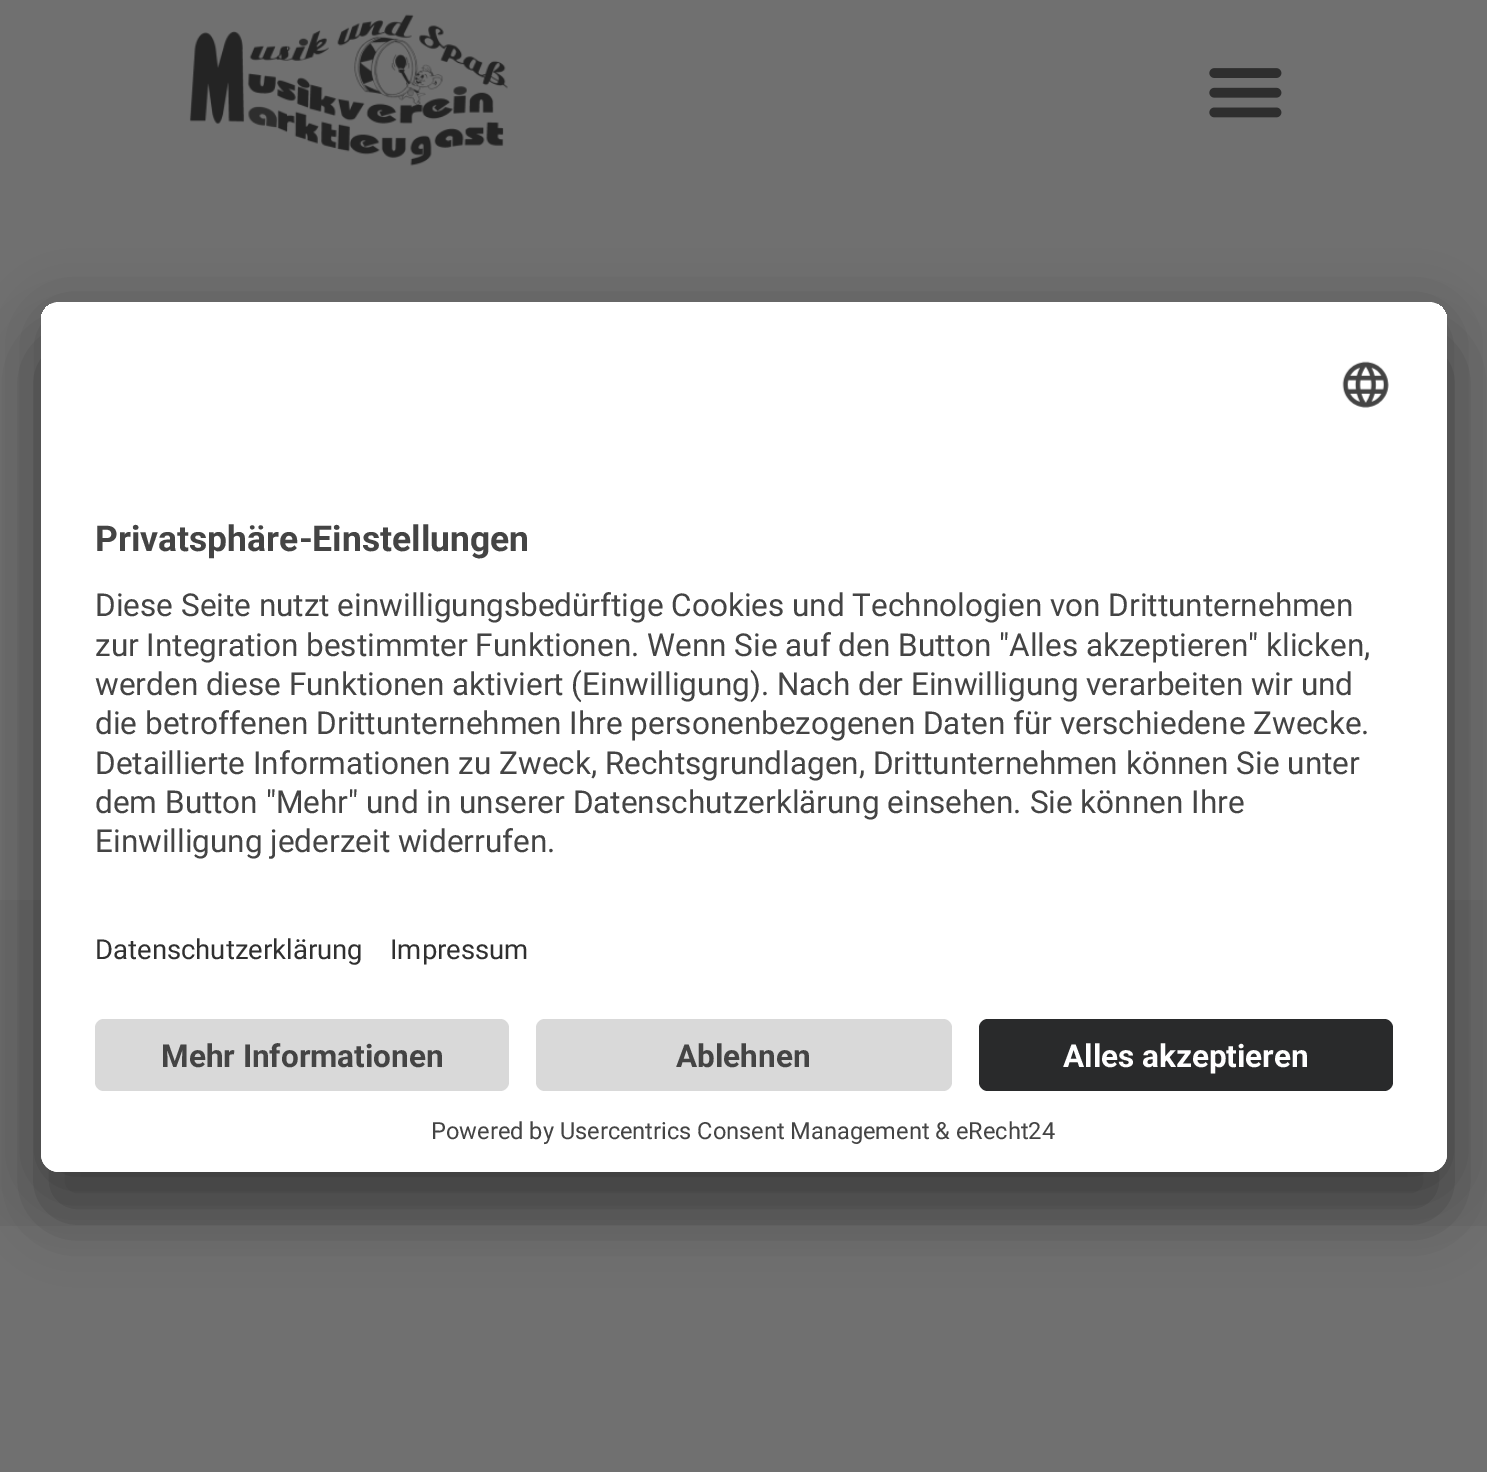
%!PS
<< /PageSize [1487 1472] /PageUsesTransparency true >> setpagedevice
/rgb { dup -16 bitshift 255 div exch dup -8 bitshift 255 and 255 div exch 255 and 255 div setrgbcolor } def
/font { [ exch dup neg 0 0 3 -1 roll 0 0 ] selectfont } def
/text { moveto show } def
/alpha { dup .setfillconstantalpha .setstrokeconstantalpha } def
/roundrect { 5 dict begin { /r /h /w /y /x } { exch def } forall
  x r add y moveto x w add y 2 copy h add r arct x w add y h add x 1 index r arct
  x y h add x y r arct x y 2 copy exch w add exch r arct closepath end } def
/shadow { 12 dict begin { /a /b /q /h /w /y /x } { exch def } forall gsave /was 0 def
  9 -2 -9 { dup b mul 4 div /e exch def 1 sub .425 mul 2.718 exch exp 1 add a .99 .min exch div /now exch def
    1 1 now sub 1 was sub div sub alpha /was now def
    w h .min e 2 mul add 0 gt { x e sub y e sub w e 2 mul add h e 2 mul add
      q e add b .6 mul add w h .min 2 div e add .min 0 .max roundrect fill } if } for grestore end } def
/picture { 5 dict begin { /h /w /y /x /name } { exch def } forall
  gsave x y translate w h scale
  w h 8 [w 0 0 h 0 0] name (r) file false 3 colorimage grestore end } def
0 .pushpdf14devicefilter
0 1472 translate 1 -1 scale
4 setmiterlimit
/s1 { /Roboto-Bold 35.5 font 16#444444 rgb } def
/s2 { /Roboto-Regular 31.5 font 16#444444 rgb } def
/s3 { /Roboto-Regular 27.5 font 16#303030 rgb } def
/s4 { /Roboto-Bold 31.5 font 16#444444 rgb } def
/s5 { /Roboto-Bold 31.5 font 16#FFFFFF rgb } def
/s6 { /Roboto-Regular 23.6 font 16#444444 rgb } def
16#707070 rgb
0 0 1487 1472 rectfill
(pic1.raw) 189 14 319 152 picture
(pic2.raw) 1209 68 73 50 picture
16#6B6B6B rgb
0 900 1487 326 rectfill
16#000000 rgb
41 347 1406 870 18 31.5 0.3 shadow
41 313 1406 871 18 29 0.22 shadow
16#FFFFFF rgb
41 302 1406 870 18 roundrect fill
gsave
41 302 1406 870 18 roundrect clip newpath
59 302 moveto 1429 302 lineto 1439 302 1447 310 1447 320 curveto 1447 1001 lineto 41 1001 lineto 41 320 lineto 41 310 49 302 59 302 curveto closepath clip newpath
41 304 1406 697 rectfill
grestore
(pic3.raw) 1342 361 47 47 picture
s1
(Privatsphäre-Einstellungen) 95 551 text
s2
(Diese Seite nutzt einwilligungsbedürftige Cookies und Technologien von Drittunternehmen) 95 616 text
(zur Integration bestimmter Funktionen. Wenn Sie auf den Button "Alles akzeptieren" klicken,) 95 656 text
(werden diese Funktionen aktiviert \(Einwilligung\). Nach der Einwilligung verarbeiten wir und) 95 695 text
(die betroffenen Drittunternehmen Ihre personenbezogenen Daten für verschiedene Zwecke.) 95 734 text
(Detaillierte Informationen zu Zweck, Rechtsgrundlagen, Drittunternehmen können Sie unter) 95 774 text
(dem Button "Mehr" und in unserer Datenschutzerklärung einsehen. Sie können Ihre) 95 813 text
(Einwilligung jederzeit widerrufen.) 95 852 text
s3
(Datenschutzerklärung) 95 959 text
(Impressum) 390 959 text
16#FFFFFF rgb
41 1001 moveto 1447 1001 lineto 1447 1154 lineto 1447 1164 1439 1172 1429 1172 curveto 59 1172 lineto 49 1172 41 1164 41 1154 curveto closepath fill
16#D9D9D9 rgb
95 1019 414 72 9 roundrect fill
s4
(Mehr Informationen) 161 1067 text
16#D9D9D9 rgb
536 1019 416 72 9 roundrect fill
s4
(Ablehnen) 676 1067 text
16#292A2B rgb
979 1019 414 72 9 roundrect fill
s5
(Alles akzeptieren) 1063 1067 text
s6
(Powered by Usercentrics Consent Management & eRecht24) 431 1139 text
.poppdf14devicefilter showpage
